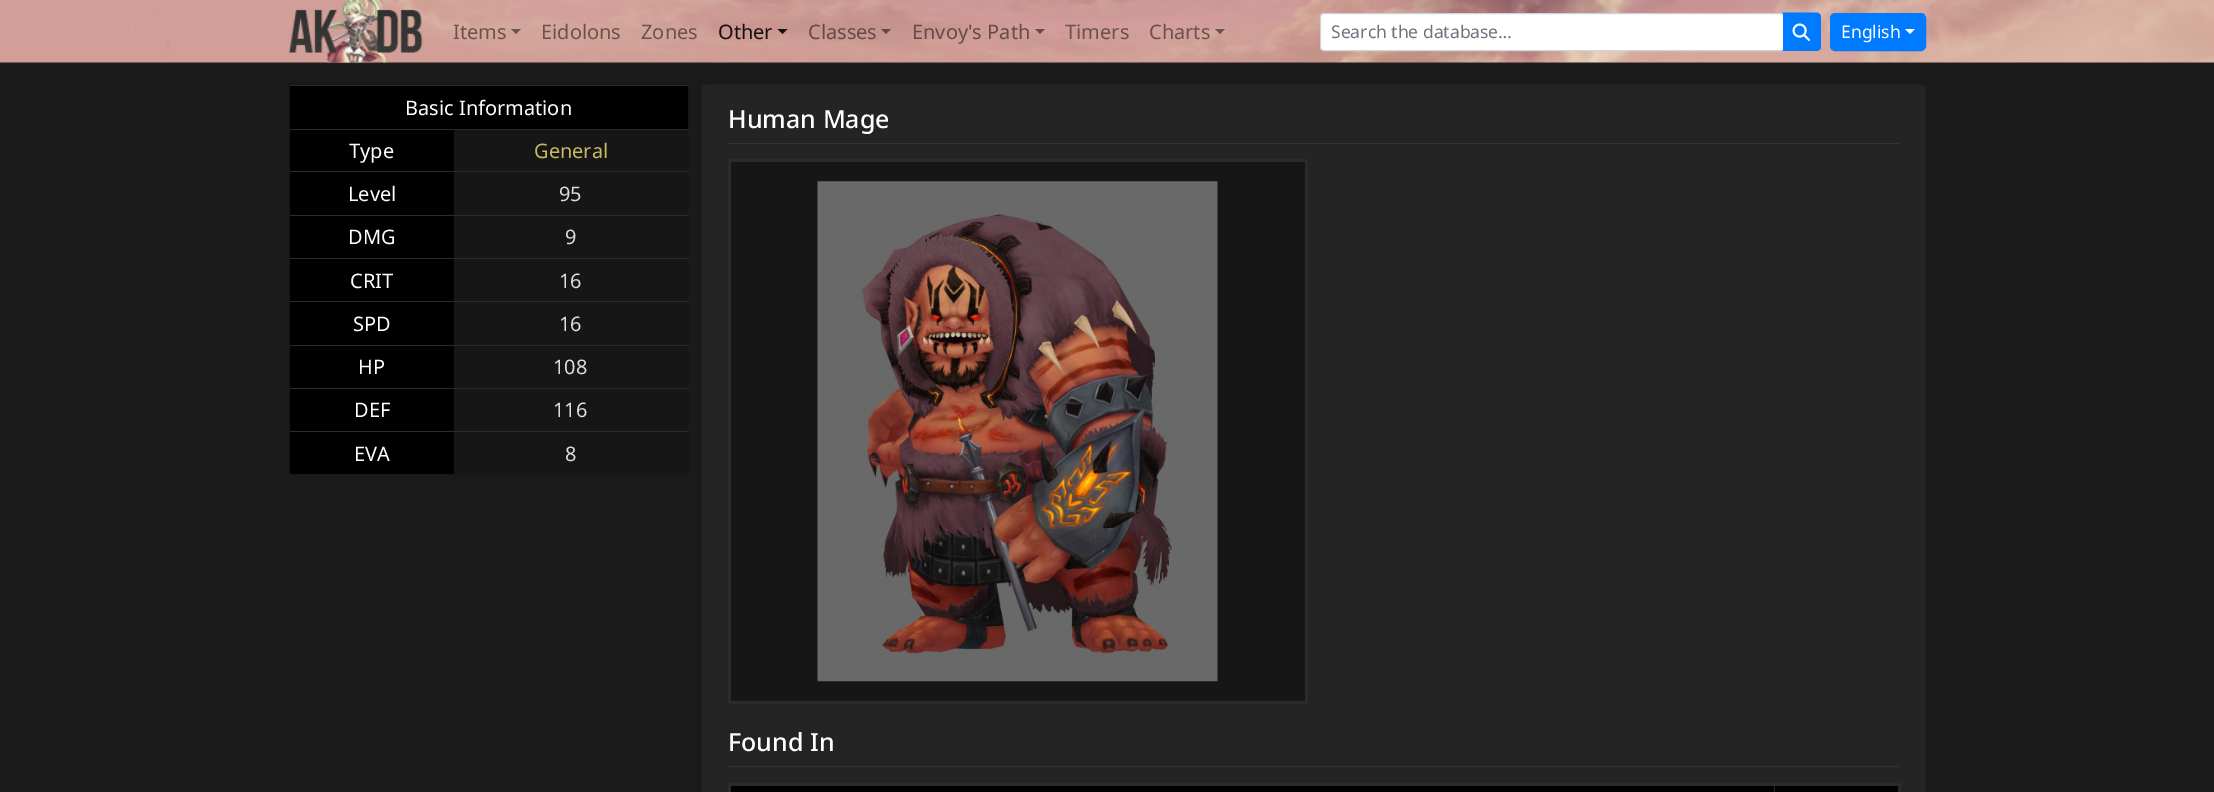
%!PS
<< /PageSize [2214 792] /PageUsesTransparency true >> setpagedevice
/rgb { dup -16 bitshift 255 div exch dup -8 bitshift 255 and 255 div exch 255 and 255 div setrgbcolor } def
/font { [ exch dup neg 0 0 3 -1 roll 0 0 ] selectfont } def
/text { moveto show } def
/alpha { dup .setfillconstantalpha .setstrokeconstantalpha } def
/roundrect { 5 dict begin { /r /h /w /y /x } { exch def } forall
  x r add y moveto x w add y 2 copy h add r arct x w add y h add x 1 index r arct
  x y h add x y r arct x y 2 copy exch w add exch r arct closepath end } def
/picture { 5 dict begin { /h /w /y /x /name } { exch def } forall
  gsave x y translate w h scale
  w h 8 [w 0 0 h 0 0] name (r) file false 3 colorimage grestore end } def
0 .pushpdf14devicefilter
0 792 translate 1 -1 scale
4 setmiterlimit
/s1 { /NotoSans-Regular 20 font 16#6A524D rgb } def
/s2 { /NotoSans-Regular 20 font 16#140F0F rgb } def
/s3 { /NotoSans-Regular 20 font 16#644B48 rgb } def
/s4 { /NotoSans-Regular 17.5 font 16#6C757D rgb } def
/s5 { /NotoSans-Regular 17.5 font 16#FFFFFF rgb } def
/s6 { /NotoSans-Regular 20 font 16#FFFFFF rgb } def
/s7 { /NotoSans-Regular 20 font 16#C7BA65 rgb } def
/s8 { /NotoSans-Regular 20 font 16#DDDDDD rgb } def
/s9 { /NotoSans-Medium 25 font 16#FFFFFF rgb } def
16#1A1A1A rgb
0 0 2214 792 rectfill
(pic1.raw) 0 0 2214 63 picture
16#1F1F1F rgb
0 63 2214 1 rectfill
(pic2.raw) 288 0 135 63 picture
s1
(Items) 453 39 text
0.5 alpha
16#000000 rgb
511 29 moveto 521 29 lineto 516 34 lineto closepath fill
1 alpha
s1
(Eidolons) 541 39 text
(Zones) 641 39 text
s2
(Other) 718 39 text
0.9 alpha
16#000000 rgb
777.5 29 moveto 787.5 29 lineto 782.5 34 lineto closepath fill
1 alpha
s3
(Classes) 808 39 text
16#634A47 rgb
881 29 moveto 891 29 lineto 886 34 lineto closepath fill
s3
(Envoy's Path) 912 39 text
0.5 alpha
16#000000 rgb
1035 29 moveto 1045 29 lineto 1040 34 lineto closepath fill
1 alpha
s1
(Timers) 1065 39 text
(Charts) 1149 39 text
0.5 alpha
16#000000 rgb
1215 29 moveto 1225 29 lineto 1220 34 lineto closepath fill
1 alpha
16#FFFFFF rgb
1324 13.5 moveto 1783.5 13.5 lineto 1783.5 50.5 lineto 1324 50.5 lineto 1322 50.5 1320.5 49 1320.5 47 curveto 1320.5 17 lineto 1320.5 15 1322 13.5 1324 13.5 curveto closepath gsave fill grestore
16#CED4DA rgb
stroke
s4
(Search the database…) 1331 38 text
16#007BFF rgb
1783 13 moveto 1816 13 lineto 1819 13 1821 15 1821 18 curveto 1821 46 lineto 1821 49 1819 51 1816 51 curveto 1783 51 lineto closepath fill
1782.5 12.5 moveto 1816 12.5 lineto 1819 12.5 1821 14.5 1821 17.5 curveto 1821 46 lineto 1821 49 1819 51 1816 51 curveto 1782.5 51 lineto closepath 1782.5 14 moveto 1816 14 lineto 1818.5 14 1820 15.5 1820 17.5 curveto 1820 46 lineto 1820 48.5 1818.5 50 1816 50 curveto 1782.5 50 lineto closepath eofill
(pic3.raw) 1792 23 18 18 picture
1830.5 13.5 95 37 4.5 roundrect gsave fill grestore
stroke
s5
(English) 1841 38 text
1905 29 moveto 1915 29 lineto 1910 34 lineto closepath fill
16#171717 rgb
289.5 84.5 399 390 rectstroke
16#000000 rgb
290 86 398 43 rectfill
16#2B2B2B rgb
290 85 399 1 rectfill
s6
(Basic Information) 405 115 text
16#000000 rgb
290 130 164 85 rectfill
s6
(Type) 349 158 text
16#161616 rgb
454 130 234 85 rectfill
16#2B2B2B rgb
290 129 399 1 rectfill
s7
(General) 534 158 text
s6
(Level) 348 201 text
16#2B2B2B rgb
290 171 399 1 rectfill
s8
(95) 559 201 text
16#000000 rgb
290 216 164 42 rectfill
s6
(DMG) 348 244 text
16#161616 rgb
454 216 234 42 rectfill
16#2B2B2B rgb
290 215 399 1 rectfill
s8
(9) 565 244 text
16#000000 rgb
290 259 164 42 rectfill
s6
(CRIT) 350 288 text
16#161616 rgb
454 259 234 42 rectfill
16#2B2B2B rgb
290 258 399 1 rectfill
s8
(16) 559 288 text
16#000000 rgb
290 302 164 43 rectfill
s6
(SPD) 353 331 text
16#161616 rgb
454 302 234 43 rectfill
16#2B2B2B rgb
290 301 399 1 rectfill
s8
(16) 559 331 text
16#000000 rgb
290 346 164 42 rectfill
s6
(HP) 358 374 text
16#161616 rgb
454 346 234 42 rectfill
16#2B2B2B rgb
290 345 399 1 rectfill
s8
(108) 553 374 text
16#000000 rgb
290 389 164 42 rectfill
s6
(DEF) 354 417 text
16#161616 rgb
454 389 234 42 rectfill
16#2B2B2B rgb
290 388 399 1 rectfill
s8
(116) 553 417 text
16#000000 rgb
290 432 164 42 rectfill
s6
(EVA) 354 461 text
16#161616 rgb
454 432 234 42 rectfill
16#2B2B2B rgb
290 431 399 1 rectfill
s8
(8) 565 461 text
16#242424 rgb
701 84 1225 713 5 roundrect fill
0.12 alpha
16#000000 rgb
701.5 84.5 1224 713 4.5 roundrect stroke
1 alpha
16#333333 rgb
728 143 1172 1 rectfill
s9
(Human Mage) 728 128 text
16#2B2B2B rgb
728 159 580 3 rectfill
1305 159 3 545 rectfill
728 701 580 3 rectfill
728 159 3 545 rectfill
16#161616 rgb
731 162 574 539 rectfill
(pic4.raw) 817 181 401 501 picture
16#333333 rgb
728 766 1172 1 rectfill
s9
(Found In) 728 751 text
16#000000 rgb
729 786 1170 6 rectfill
16#2B2B2B rgb
1898 783 3 9 rectfill
728 783 3 9 rectfill
1774 784 1 8 rectfill
728 783 1172 3 rectfill
.poppdf14devicefilter showpage
